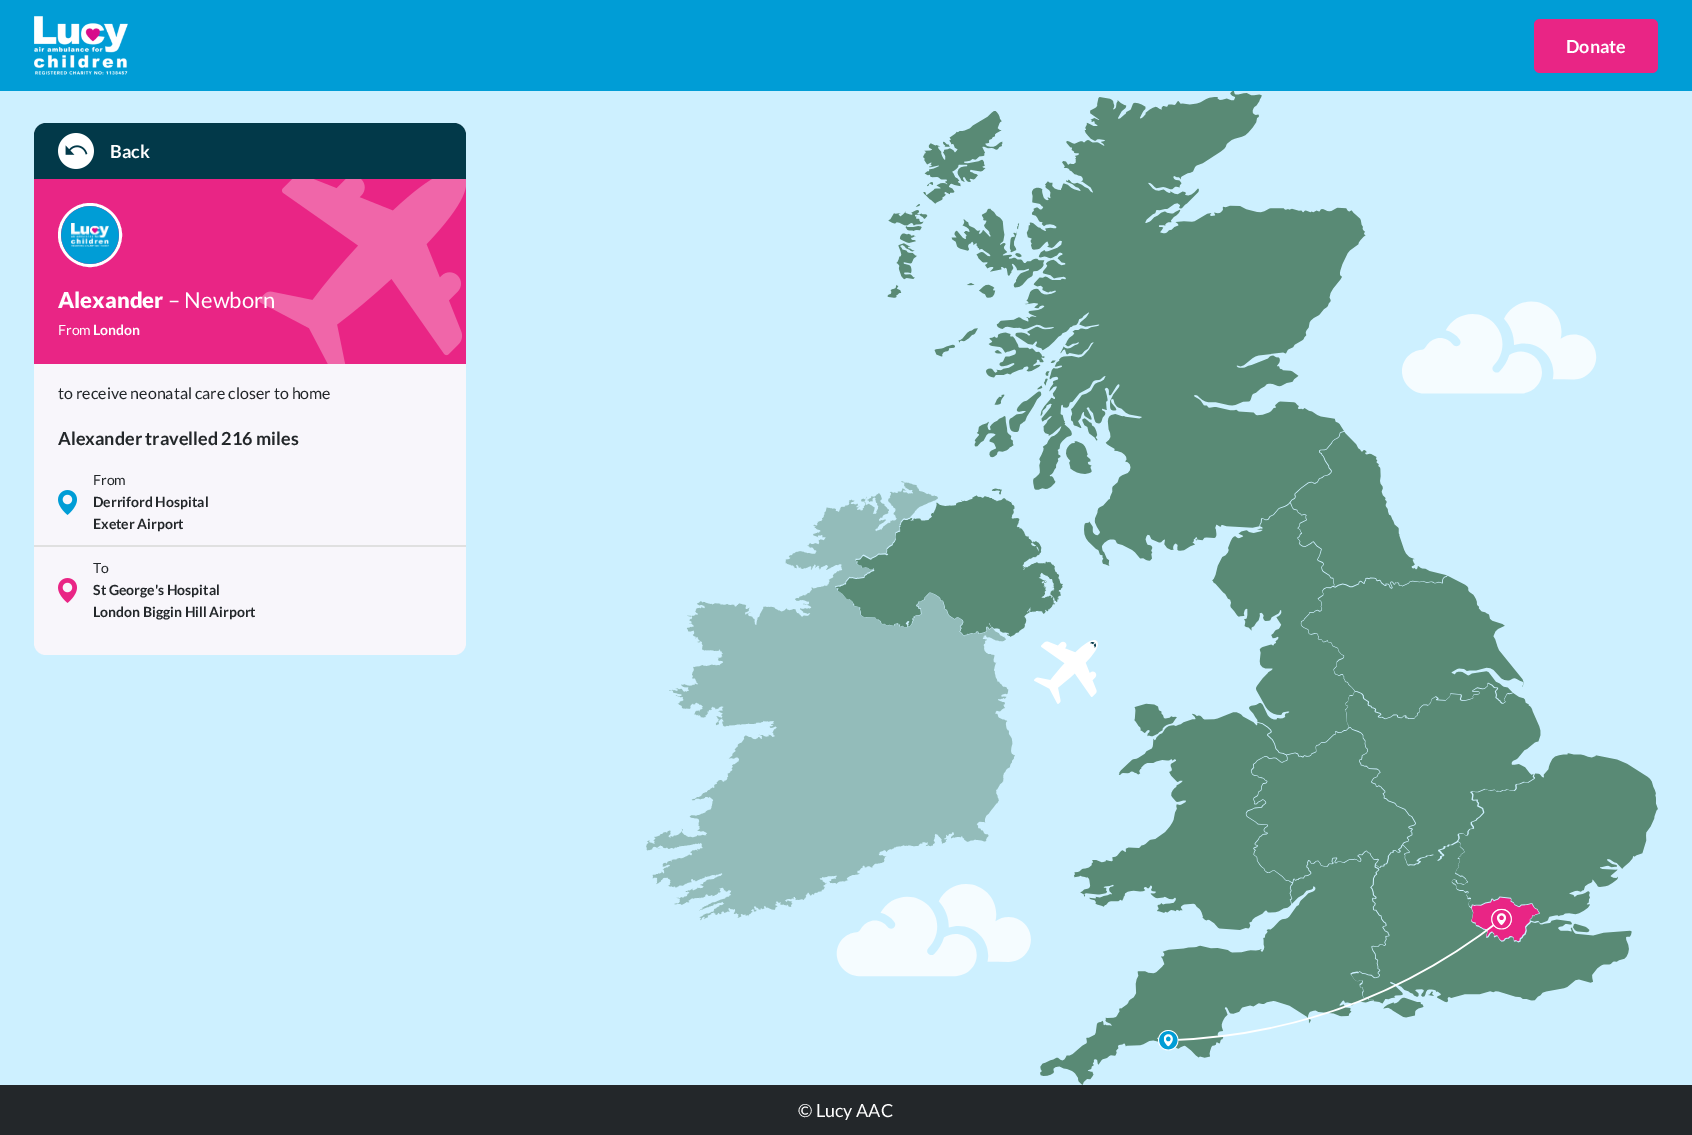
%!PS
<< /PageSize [1692 1135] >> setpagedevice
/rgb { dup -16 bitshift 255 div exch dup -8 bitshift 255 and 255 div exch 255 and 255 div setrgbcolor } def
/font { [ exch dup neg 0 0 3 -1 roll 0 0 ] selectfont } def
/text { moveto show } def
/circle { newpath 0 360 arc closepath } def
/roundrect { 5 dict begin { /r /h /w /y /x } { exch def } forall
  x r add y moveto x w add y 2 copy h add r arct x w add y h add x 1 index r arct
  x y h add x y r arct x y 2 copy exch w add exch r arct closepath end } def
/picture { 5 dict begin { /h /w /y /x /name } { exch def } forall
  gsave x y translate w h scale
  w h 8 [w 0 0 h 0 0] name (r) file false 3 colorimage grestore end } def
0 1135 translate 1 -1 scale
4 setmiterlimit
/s1 { /Lato-Bold 18 font 16#FFFFFF rgb } def
/s2 { /Lato-Black 22 font 16#FFFFFF rgb } def
/s3 { /Lato-Regular 22 font 16#FFFFFF rgb } def
/s4 { /Lato-Regular 14 font 16#FFFFFF rgb } def
/s5 { /Lato-Bold 14 font 16#FFFFFF rgb } def
/s6 { /Lato-Regular 16 font 16#23272A rgb } def
/s7 { /Lato-Bold 18 font 16#23272A rgb } def
/s8 { /Lato-Regular 14 font 16#23272A rgb } def
/s9 { /Lato-Bold 14 font 16#23272A rgb } def
/s10 { /Lato-Regular 18 font 16#FFFFFF rgb } def
16#CDF0FF rgb
0 0 1692 1135 rectfill
16#009DD6 rgb
0 0 1692 91 rectfill
(pic1.raw) 34 16 94 59 picture
16#E92585 rgb
1534 19 124 54 6 roundrect fill
s1
(Donate) 1566 53 text
16#F8F6FB rgb
34 123 432 532 12 roundrect fill
16#023949 rgb
46 123 moveto 454 123 lineto 460.5 123 466 128.5 466 135 curveto 466 179 lineto 34 179 lineto 34 135 lineto 34 128.5 39.5 123 46 123 curveto closepath fill
(pic2.raw) 58 133 36 36 picture
s1
(Back) 110 158 text
16#E92585 rgb
34 179 432 185 rectfill
(pic3.raw) 259 179 207 185 picture
16#FFFFFF rgb
3 setlinewidth
90 235 30.5 circle stroke
(pic4.raw) 61 206 58 58 picture
s2
(Alexander) 58 308 text
s3
(– Newborn) 168 308 text
s4
(From) 58 335 text
s5
(London) 93 335 text
s6
(to receive neonatal care closer to home) 58 399 text
s7
(Alexander travelled 216 miles) 58 445 text
(pic5.raw) 58 490 19 25 picture
s8
(From) 93 485 text
s9
(Derriford Hospital) 93 507 text
(Exeter Airport) 93 529 text
16#E0E0E0 rgb
34 545 432 2 rectfill
(pic6.raw) 58 578 19 25 picture
s8
(To) 93 573 text
s9
(St George's Hospital) 93 595 text
(London Biggin Hill Airport) 93 617 text
(pic7.raw) 646 91 1012 994 picture
0 1085 1692 50 rectfill
s10
(© Lucy AAC) 798 1117 text
showpage
